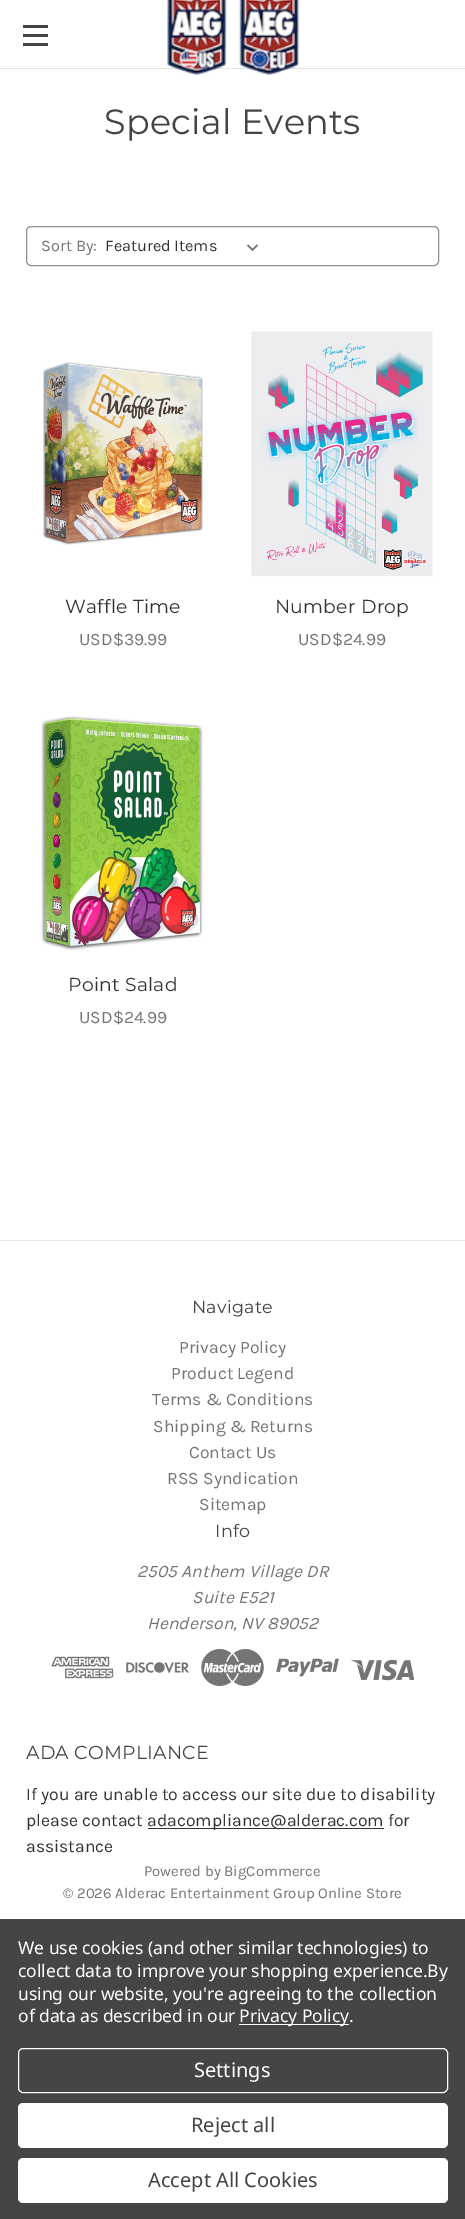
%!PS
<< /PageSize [465 2219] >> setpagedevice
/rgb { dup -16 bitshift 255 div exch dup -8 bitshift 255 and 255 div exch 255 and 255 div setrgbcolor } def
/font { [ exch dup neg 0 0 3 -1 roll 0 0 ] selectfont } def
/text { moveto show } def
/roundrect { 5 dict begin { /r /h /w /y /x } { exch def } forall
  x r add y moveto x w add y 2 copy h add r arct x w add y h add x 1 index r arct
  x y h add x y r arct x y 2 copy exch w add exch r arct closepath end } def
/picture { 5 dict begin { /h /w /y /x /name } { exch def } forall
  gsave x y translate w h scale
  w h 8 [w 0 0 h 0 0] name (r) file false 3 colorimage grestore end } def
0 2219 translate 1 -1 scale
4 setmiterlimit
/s1 { /Karla-Regular 16.25 font 16#757575 rgb } def
/s2 { /Karla-Regular 16.25 font 16#333333 rgb } def
/s3 { /Karla-Regular 17.5 font 16#757575 rgb } def
/s4 { /Karla-Italic 17.5 font 16#757575 rgb } def
/s5 { /Karla-Regular 17.5 font 16#333333 rgb } def
/s6 { /Karla-Regular 15 font 16#757575 rgb } def
/s7 { /NotoSans-Regular 20 font 16#FFFFFF rgb } def
/s8 { /NotoSans-Regular 20 font 16#444444 rgb } def
16#FFFFFF rgb
0 0 465 2219 rectfill
16#E5E5E5 rgb
0 68 465 1 rectfill
16#444444 rgb
23 34 25 3 rectfill
23 25 25 3 rectfill
23 43 25 3 rectfill
(pic1.raw) 167 0 60 75 picture
(pic2.raw) 239 0 61 75 picture
/Montserrat-Regular 35 font
104 134 moveto 0.25 0 (Special Events) ashow
16#8F8F8F rgb
26.5 226.5 412 39 4.5 roundrect stroke
s1
(Sort By:) 41 251 text
(pic3.raw) 247 244 11 8 picture
s2
(Featured Items) 105 251 text
(pic4.raw) 43 362 160 183 picture
/Montserrat-Regular 18.75 font
65 613 moveto 0.25 0 (Waffle Time) ashow
s3
(USD$39.99) 79 645 text
(pic5.raw) 251 331 182 246 picture
/Montserrat-Regular 18.75 font
16#333333 rgb
275 613 moveto 0.25 0 (Number Drop) ashow
s3
(USD$24.99) 298 645 text
(pic6.raw) 41 716 162 234 picture
/Montserrat-Regular 18.75 font
16#333333 rgb
68 991 moveto 0.25 0 (Point Salad) ashow
s3
(USD$24.99) 79 1023 text
16#E5E5E5 rgb
0 1240 465 1 rectfill
/Montserrat-Regular 17.5 font
16#444444 rgb
192 1313 moveto 0.25 0 (Navigate) ashow
s3
(Privacy Policy) 179 1353 text
(Product Legend) 171 1379 text
(Terms & Conditions) 152 1405 text
(Shipping & Returns) 153 1432 text
(Contact Us) 189 1458 text
(RSS Syndication) 167 1484 text
(Sitemap) 199 1510 text
/Montserrat-Regular 17.5 font
16#444444 rgb
215 1537 moveto 0.25 0 (Info) ashow
s4
(2505 Anthem Village DR) 137 1577 text
(Suite E521) 192 1603 text
(Henderson, NV 89052) 147 1629 text
(pic7.raw) 51 1656 63 23 picture
(pic8.raw) 126 1662 63 11 picture
(pic9.raw) 201 1649 63 37 picture
(pic10.raw) 276 1658 63 19 picture
(pic11.raw) 351 1659 63 22 picture
/Montserrat-Regular 18.75 font
16#444444 rgb
26 1759 moveto 0.25 0 (ADA COMPLIANCE) ashow
s5
(If you are unable to access our site due to disability) 26 1800 text
(please contact) 26 1826 text
148 1828 236 1 rectfill
(adacompliance@alderac.com for) 147 1826 text
(assistance) 26 1852 text
s6
(Powered by BigCommerce) 144 1876 text
(© 2026 Alderac Entertainment Group Online Store) 63 1898 text
16#454545 rgb
0 1919 465 300 rectfill
/NotoSans-Regular 17.5 font
16#FFFFFF rgb
18 1954 moveto -0.05 0 (We use cookies \(and other similar technologies\) to) ashow
18 1977 moveto -0.05 0 (collect data to improve your shopping experience.By) ashow
18 2000 moveto -0.05 0 (using our website, you're agreeing to the collection) ashow
18 2022 moveto -0.05 0 (of data as described in our) ashow
239 2024 110 1 rectfill
239 2022 moveto -0.05 0 (Privacy Policy.) ashow
18.5 2048.5 429 44 4.5 roundrect stroke
s7
(Settings) 194 2077 text
18 2103 430 45 5 roundrect fill
s8
(Reject all) 191 2132 text
16#FFFFFF rgb
18 2158 430 45 5 roundrect fill
s8
(Accept All Cookies) 148 2187 text
showpage
